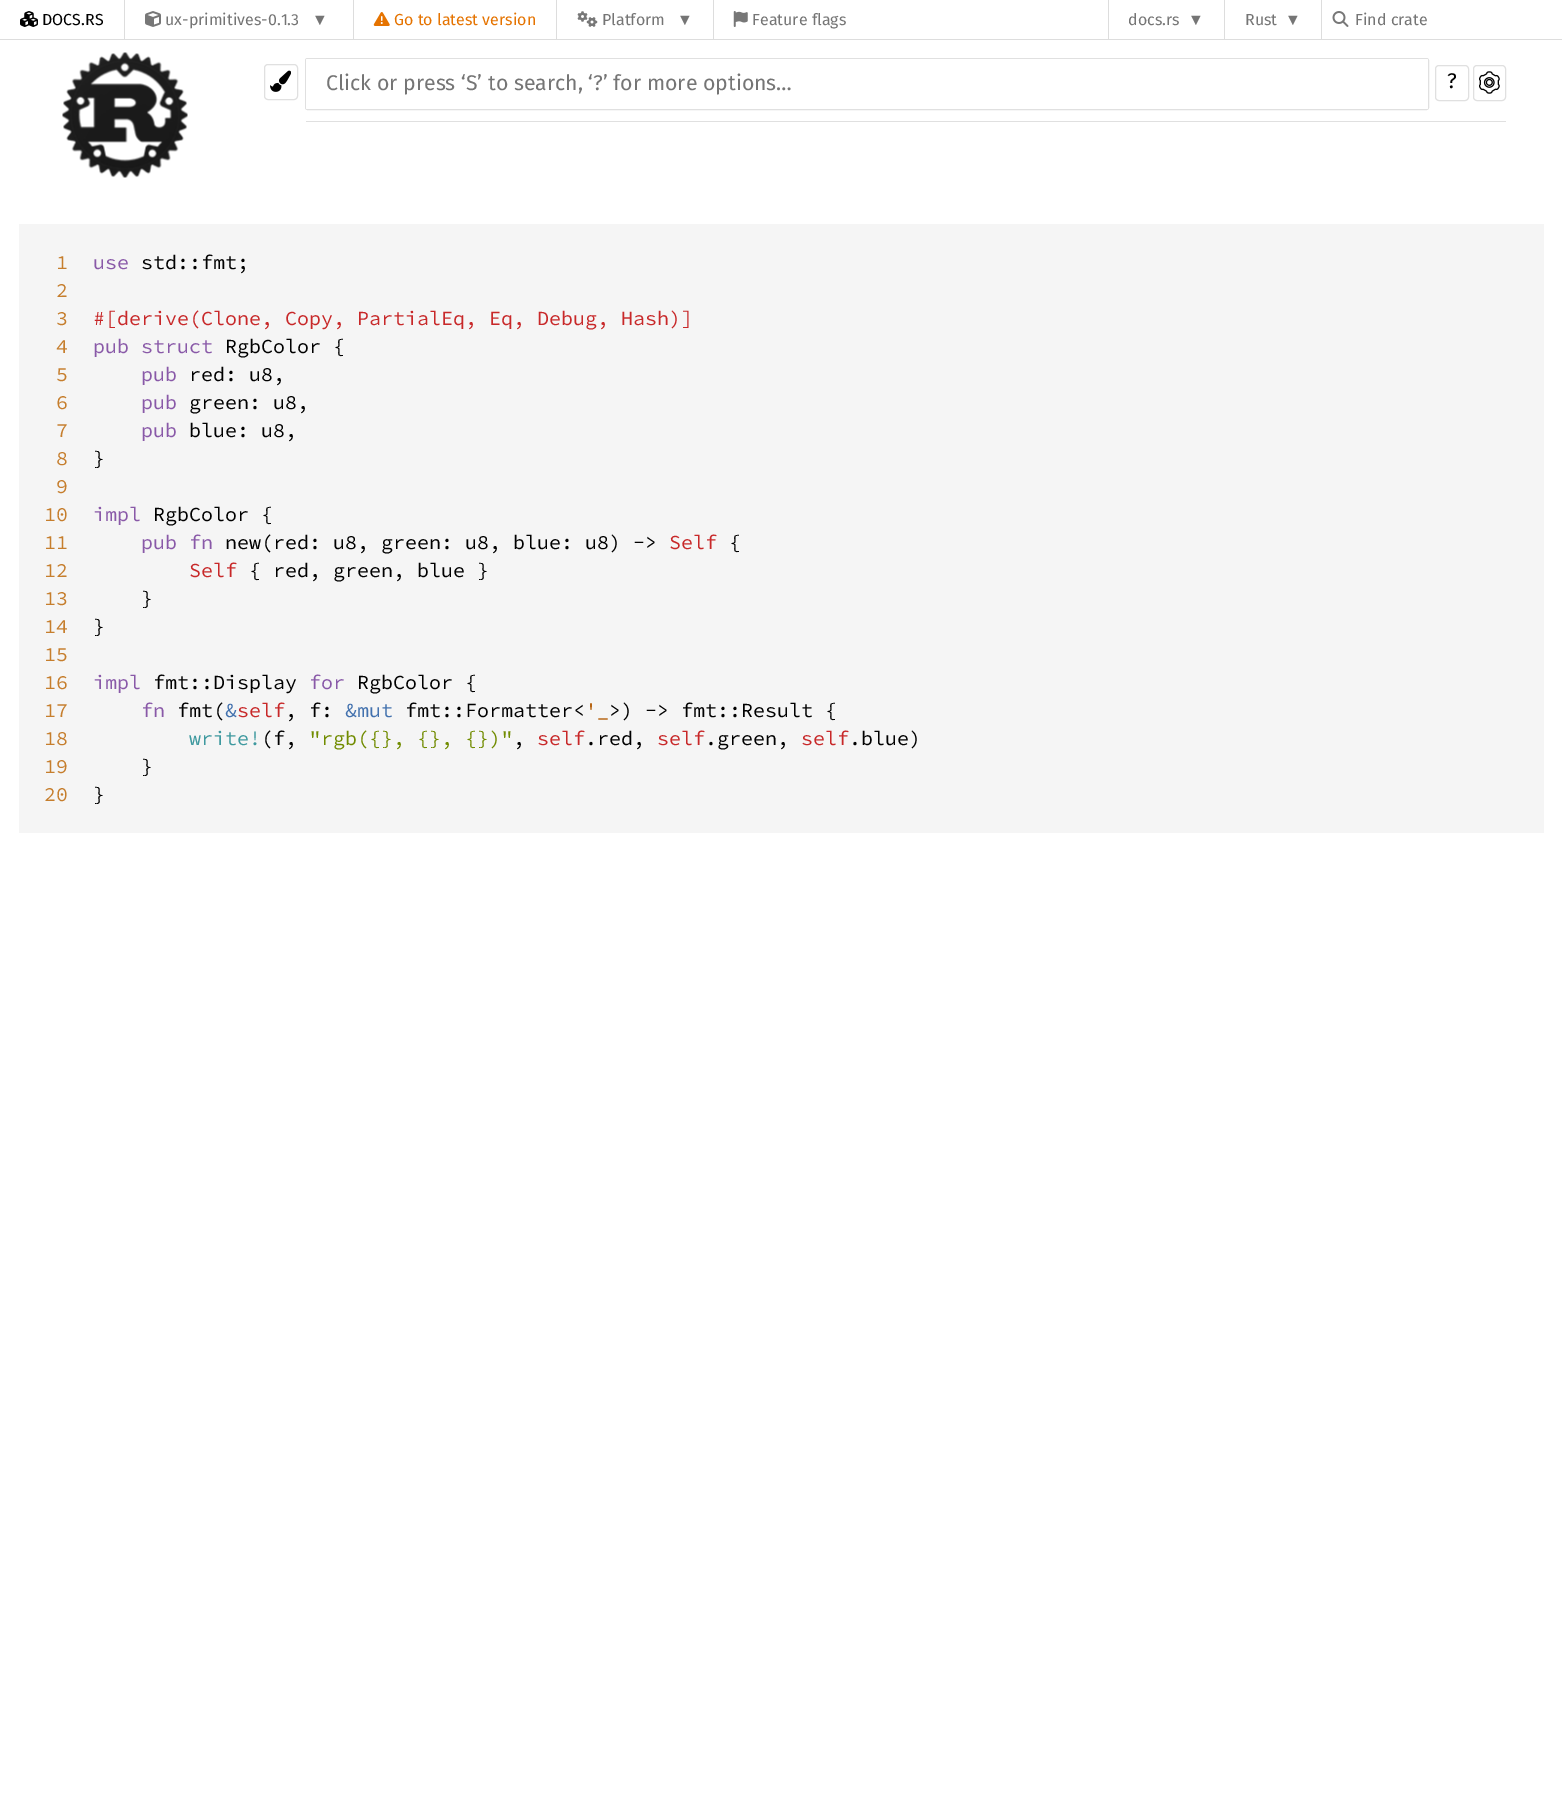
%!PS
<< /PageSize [1562 1813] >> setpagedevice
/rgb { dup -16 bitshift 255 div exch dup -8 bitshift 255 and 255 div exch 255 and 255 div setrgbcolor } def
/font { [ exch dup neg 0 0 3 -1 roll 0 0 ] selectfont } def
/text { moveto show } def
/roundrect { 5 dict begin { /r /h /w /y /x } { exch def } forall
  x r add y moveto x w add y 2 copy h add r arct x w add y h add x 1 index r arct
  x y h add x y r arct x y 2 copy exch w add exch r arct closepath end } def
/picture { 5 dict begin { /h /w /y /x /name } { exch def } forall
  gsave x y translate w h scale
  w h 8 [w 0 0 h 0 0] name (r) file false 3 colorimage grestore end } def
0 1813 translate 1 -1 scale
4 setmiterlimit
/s1 { /FiraSans-Regular 16 font 16#000000 rgb } def
/s2 { /FiraSans-Regular 16 font 16#757575 rgb } def
/s3 { /LiberationSans-Regular 16 font 16#757575 rgb } def
/s4 { /FiraSans-Regular 16 font 16#E57300 rgb } def
/s5 { /FiraSans-Regular 21.25 font 16#757575 rgb } def
/s6 { /FiraSans-Regular 21.25 font 16#000000 rgb } def
/s7 { /SourceCodePro-Regular 20 font 16#C67E2D rgb } def
/s8 { /SourceCodePro-Regular 20 font 16#8959A8 rgb } def
/s9 { /SourceCodePro-Regular 20 font 16#000000 rgb } def
/s10 { /SourceCodePro-Regular 20 font 16#C82829 rgb } def
/s11 { /SourceCodePro-Regular 20 font 16#4271AE rgb } def
/s12 { /SourceCodePro-Regular 20 font 16#B76514 rgb } def
/s13 { /SourceCodePro-Regular 20 font 16#3E999F rgb } def
/s14 { /SourceCodePro-Regular 20 font 16#718C00 rgb } def
16#FFFFFF rgb
0 0 1562 1813 rectfill
16#DDDDDD rgb
0 39 1562 1 rectfill
(pic1.raw) 20 11 18 16 picture
s1
(DOCS.RS) 42 25 text
16#DDDDDD rgb
124 0 1 39 rectfill
(pic2.raw) 145 11 16 16 picture
s2
(ux-primitives-0.1.3) 165 25 text
s3
(▼) 312 25 text
16#DDDDDD rgb
353 0 1 39 rectfill
(pic3.raw) 373 12 17 14 picture
s4
(Go to latest version) 394 25 text
16#DDDDDD rgb
556 0 1 39 rectfill
(pic4.raw) 577 11 21 16 picture
s2
(Platform) 602 25 text
s3
(▼) 677 25 text
16#DDDDDD rgb
713 0 1 39 rectfill
(pic5.raw) 733 11 15 16 picture
s2
(Feature flags) 752 25 text
16#DDDDDD rgb
1108 0 1 39 rectfill
s2
(docs.rs) 1128 25 text
s3
(▼) 1188 25 text
16#DDDDDD rgb
1224 0 1 39 rectfill
s2
(Rust) 1245 25 text
s3
(▼) 1285 25 text
16#DDDDDD rgb
1321 0 1 39 rectfill
(pic6.raw) 1332 11 17 16 picture
s2
(Find crate) 1355 25 text
(pic7.raw) 62 52 126 126 picture
16#E0E0E0 rgb
264.5 64.5 33 35 3.5 roundrect stroke
(pic8.raw) 270 70 21 22 picture
306 121 1200 1 rectfill
305.5 58.5 1123 51 2 roundrect stroke
16#FFFFFF rgb
306 59 1122 50 1 roundrect fill
s5
(Click or press ‘S’ to search, ‘?’ for more options…) 326 90 text
16#E0E0E0 rgb
1435.5 65.5 33 35 3.5 roundrect stroke
s6
(?) 1447 88 text
16#E0E0E0 rgb
1473.5 65.5 32 35 3.5 roundrect stroke
(pic9.raw) 1479 71 21 23 picture
16#F5F5F5 rgb
19 224 1525 609 rectfill
s7
(1) 56 269 text
(2) 56 297 text
(3) 56 325 text
(4) 56 353 text
(5) 56 381 text
(6) 56 409 text
(7) 56 437 text
(8) 56 465 text
(9) 56 493 text
(10) 44 521 text
(11) 44 549 text
(12) 44 577 text
(13) 44 605 text
(14) 44 633 text
(15) 44 661 text
(16) 44 689 text
(17) 44 717 text
(18) 44 745 text
(19) 44 773 text
(20) 44 801 text
s8
(use) 93 269 text
s9
(std::fmt;) 141 269 text
s10
(#[derive\(Clone, Copy, PartialEq, Eq, Debug, Hash\)]) 93 325 text
s8
(pub struct) 93 353 text
s9
(RgbColor {) 225 353 text
s8
(pub) 141 381 text
s9
(red: u8,) 189 381 text
s8
(pub) 141 409 text
s9
(green: u8,) 189 409 text
s8
(pub) 141 437 text
s9
(blue: u8,) 189 437 text
(}) 93 465 text
s8
(impl) 93 521 text
s9
(RgbColor {) 153 521 text
s8
(pub fn) 141 549 text
s9
(new\(red: u8, green: u8, blue: u8\) ->) 225 549 text
s10
(Self) 669 549 text
s9
({) 729 549 text
s10
(Self) 189 577 text
s9
({ red, green, blue }) 249 577 text
(}) 141 605 text
(}) 93 633 text
s8
(impl) 93 689 text
s9
(fmt::Display) 153 689 text
s8
(for) 309 689 text
s9
(RgbColor {) 357 689 text
s8
(fn) 141 717 text
s9
(fmt\() 177 717 text
s11
(&) 225 717 text
s10
(self) 237 717 text
s9
(, f:) 285 717 text
s11
(&mut) 345 717 text
s9
(fmt::Formatter<) 405 717 text
s12
('_) 585 717 text
s9
(>\) -> fmt::Result {) 609 717 text
s13
(write!) 189 745 text
s9
(\(f,) 261 745 text
s14
("rgb\({}, {}, {}\)") 309 745 text
s9
(,) 513 745 text
s10
(self) 537 745 text
s9
(.red,) 585 745 text
s10
(self) 657 745 text
s9
(.green,) 705 745 text
s10
(self) 801 745 text
s9
(.blue\)) 849 745 text
(}) 141 773 text
(}) 93 801 text
showpage
